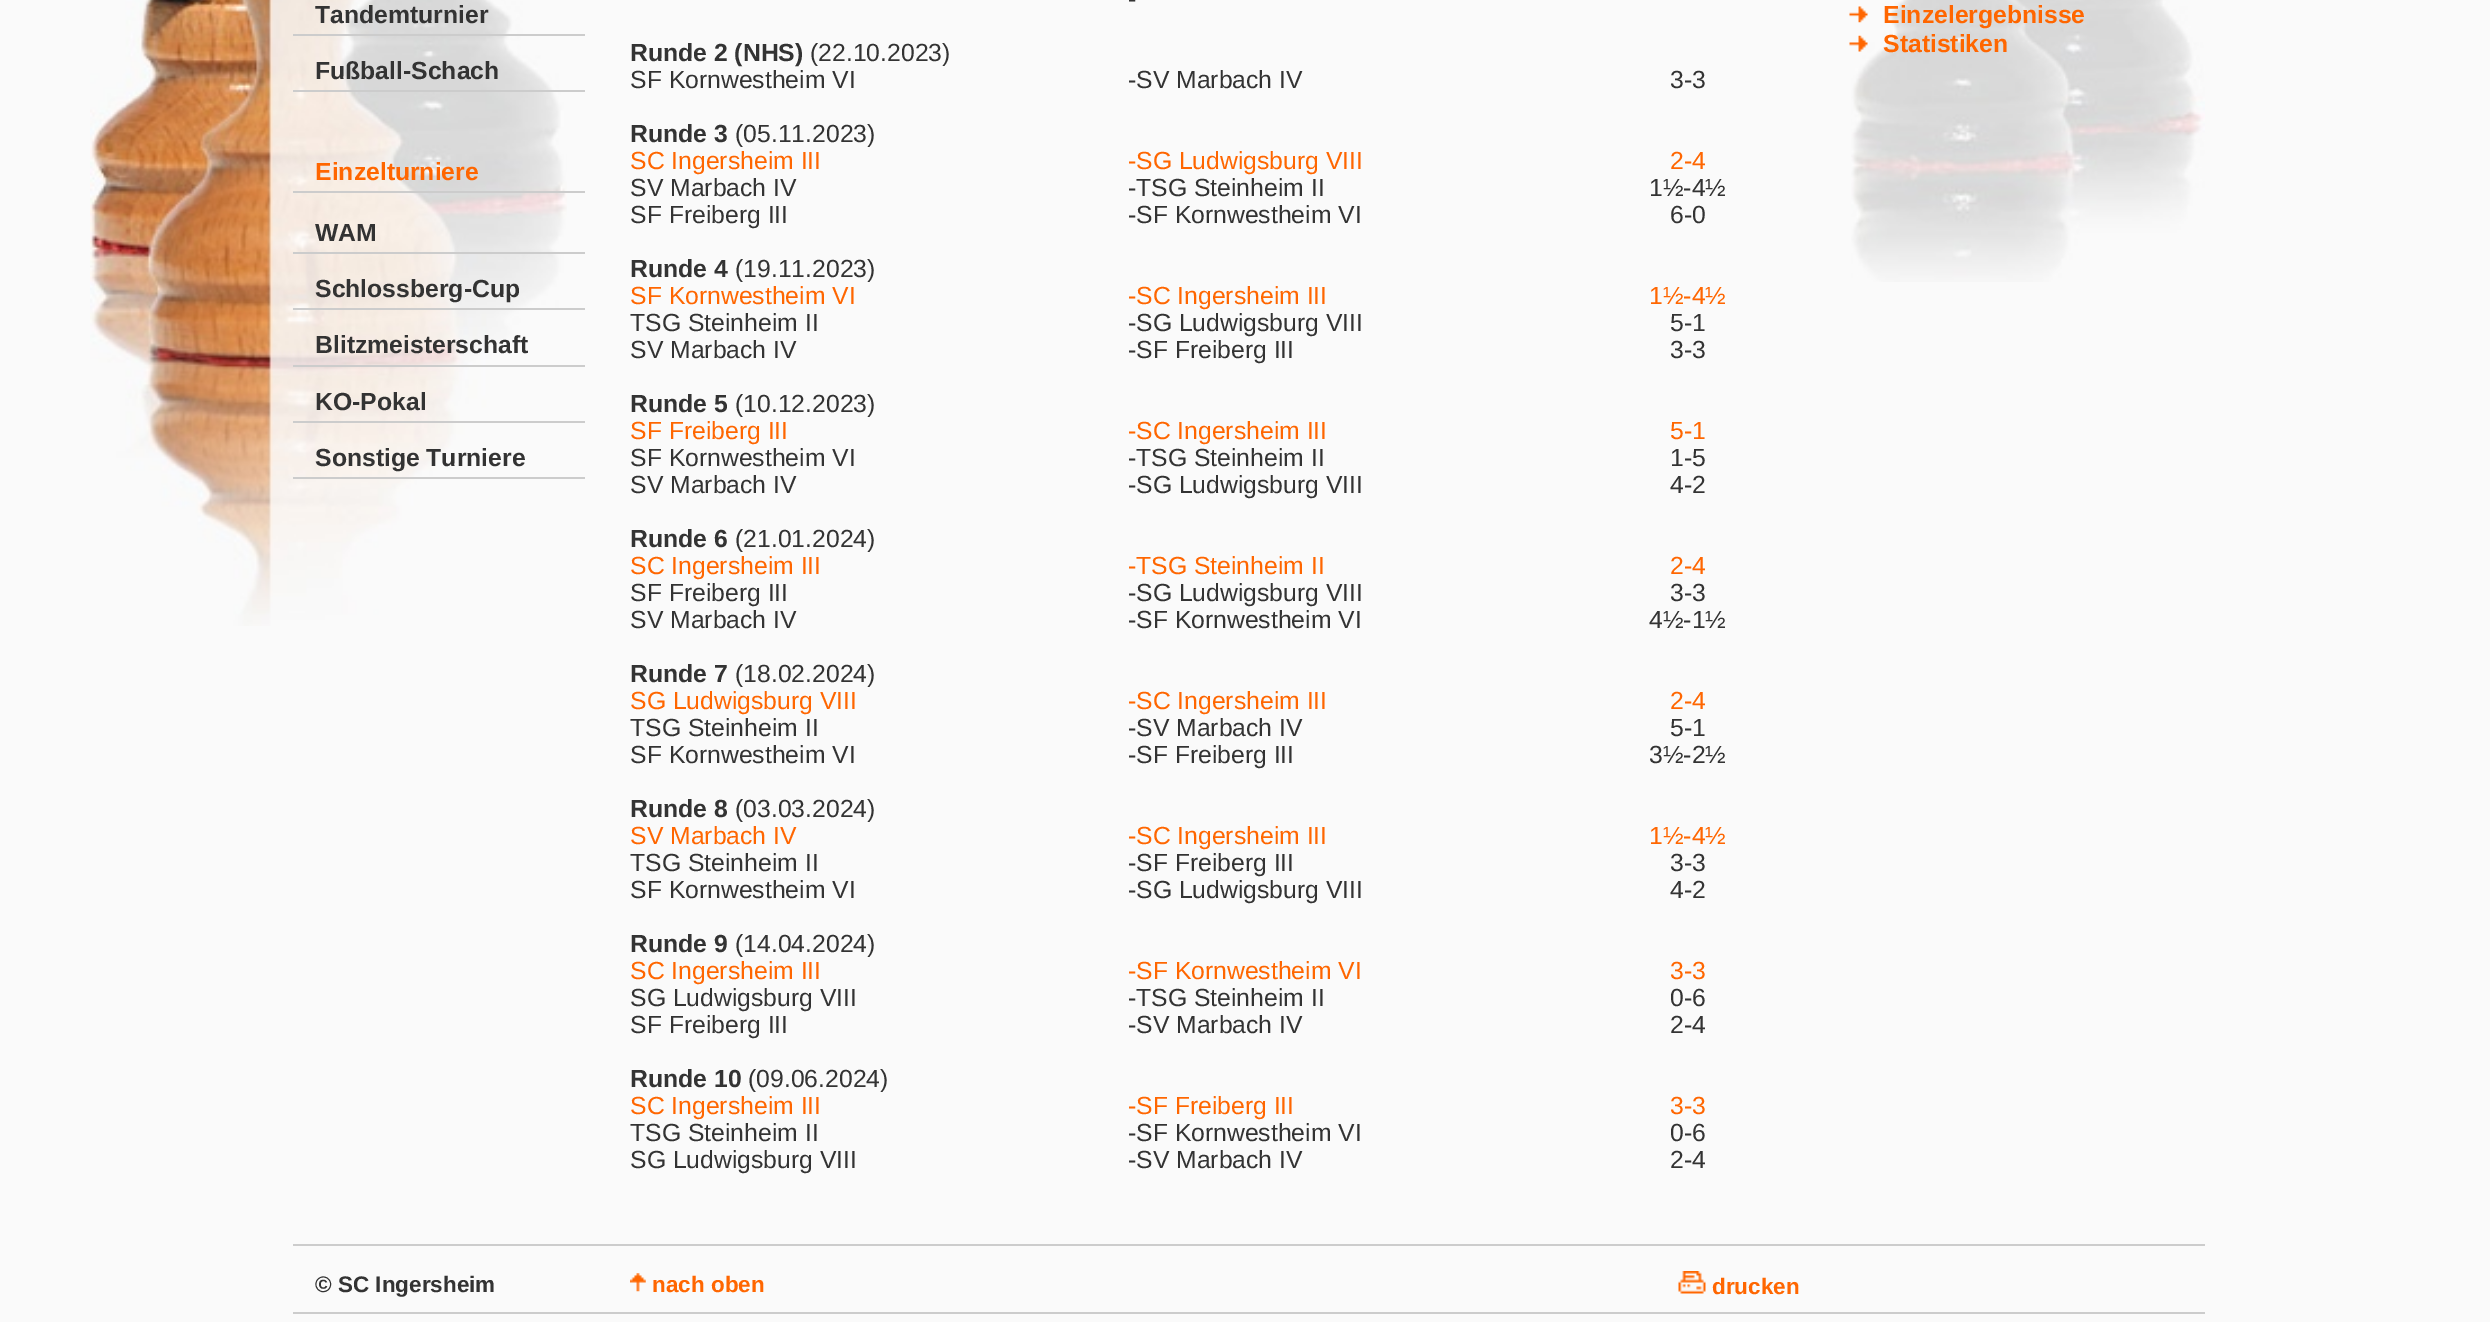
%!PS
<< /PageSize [2490 1322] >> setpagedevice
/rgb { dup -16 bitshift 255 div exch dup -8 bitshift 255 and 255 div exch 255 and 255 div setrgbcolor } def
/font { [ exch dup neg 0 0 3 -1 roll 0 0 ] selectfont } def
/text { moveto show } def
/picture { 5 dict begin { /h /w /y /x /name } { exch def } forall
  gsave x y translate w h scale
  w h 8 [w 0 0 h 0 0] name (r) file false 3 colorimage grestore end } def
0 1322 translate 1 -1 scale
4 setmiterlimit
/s1 { /LiberationSans-Bold 24.75 font 16#333333 rgb } def
/s2 { /LiberationSans-Bold 24.75 font 16#FF6600 rgb } def
/s3 { /LiberationSans-Regular 24.75 font 16#333333 rgb } def
/s4 { /LiberationSans-Regular 24.75 font 16#FF6600 rgb } def
/s5 { /LiberationSans-Bold 22.5 font 16#333333 rgb } def
/s6 { /LiberationSans-Bold 22.5 font 16#FF6600 rgb } def
16#FAFAFA rgb
0 0 2490 1322 rectfill
(pic1.raw) 90 0 477 626 picture
16#CCCCCC rgb
293 34 292 2 rectfill
s1
(Tandemturnier) 315 23 text
16#CCCCCC rgb
293 90 292 2 rectfill
s1
(Fußball-Schach) 315 79 text
16#CCCCCC rgb
293 191 292 2 rectfill
s2
(Einzelturniere) 315 180 text
16#CCCCCC rgb
293 252 292 2 rectfill
s1
(WAM) 315 241 text
16#CCCCCC rgb
293 308 292 2 rectfill
s1
(Schlossberg-Cup) 315 297 text
16#CCCCCC rgb
293 365 292 2 rectfill
s1
(Blitzmeisterschaft) 315 353 text
16#CCCCCC rgb
293 421 292 2 rectfill
s1
(KO-Pokal) 315 410 text
16#CCCCCC rgb
293 477 292 2 rectfill
s1
(Sonstige Turniere) 315 466 text
s3
(-) 1128 7 text
s1
(Runde 2 \(NHS\)) 630 61 text
s3
(\(22.10.2023\)) 810 61 text
(SF Kornwestheim VI) 630 88 text
(-) 1128 88 text
(SV Marbach IV) 1136 88 text
(3-3) 1670 88 text
s1
(Runde 3) 630 142 text
s3
(\(05.11.2023\)) 735 142 text
s4
(SC Ingersheim III) 630 169 text
(-) 1128 169 text
(SG Ludwigsburg VIII) 1136 169 text
(2-4) 1670 169 text
s3
(SV Marbach IV) 630 196 text
(-) 1128 196 text
(TSG Steinheim II) 1136 196 text
(1½-4½) 1649 196 text
(SF Freiberg III) 630 223 text
(-) 1128 223 text
(SF Kornwestheim VI) 1136 223 text
(6-0) 1670 223 text
s1
(Runde 4) 630 277 text
s3
(\(19.11.2023\)) 735 277 text
s4
(SF Kornwestheim VI) 630 304 text
(-) 1128 304 text
(SC Ingersheim III) 1136 304 text
(1½-4½) 1649 304 text
s3
(TSG Steinheim II) 630 331 text
(-) 1128 331 text
(SG Ludwigsburg VIII) 1136 331 text
(5-1) 1670 331 text
(SV Marbach IV) 630 358 text
(-) 1128 358 text
(SF Freiberg III) 1136 358 text
(3-3) 1670 358 text
s1
(Runde 5) 630 412 text
s3
(\(10.12.2023\)) 735 412 text
s4
(SF Freiberg III) 630 439 text
(-) 1128 439 text
(SC Ingersheim III) 1136 439 text
(5-1) 1670 439 text
s3
(SF Kornwestheim VI) 630 466 text
(-) 1128 466 text
(TSG Steinheim II) 1136 466 text
(1-5) 1670 466 text
(SV Marbach IV) 630 493 text
(-) 1128 493 text
(SG Ludwigsburg VIII) 1136 493 text
(4-2) 1670 493 text
s1
(Runde 6) 630 547 text
s3
(\(21.01.2024\)) 735 547 text
s4
(SC Ingersheim III) 630 574 text
(-) 1128 574 text
(TSG Steinheim II) 1136 574 text
(2-4) 1670 574 text
s3
(SF Freiberg III) 630 601 text
(-) 1128 601 text
(SG Ludwigsburg VIII) 1136 601 text
(3-3) 1670 601 text
(SV Marbach IV) 630 628 text
(-) 1128 628 text
(SF Kornwestheim VI) 1136 628 text
(4½-1½) 1649 628 text
s1
(Runde 7) 630 682 text
s3
(\(18.02.2024\)) 735 682 text
s4
(SG Ludwigsburg VIII) 630 709 text
(-) 1128 709 text
(SC Ingersheim III) 1136 709 text
(2-4) 1670 709 text
s3
(TSG Steinheim II) 630 736 text
(-) 1128 736 text
(SV Marbach IV) 1136 736 text
(5-1) 1670 736 text
(SF Kornwestheim VI) 630 763 text
(-) 1128 763 text
(SF Freiberg III) 1136 763 text
(3½-2½) 1649 763 text
s1
(Runde 8) 630 817 text
s3
(\(03.03.2024\)) 735 817 text
s4
(SV Marbach IV) 630 844 text
(-) 1128 844 text
(SC Ingersheim III) 1136 844 text
(1½-4½) 1649 844 text
s3
(TSG Steinheim II) 630 871 text
(-) 1128 871 text
(SF Freiberg III) 1136 871 text
(3-3) 1670 871 text
(SF Kornwestheim VI) 630 898 text
(-) 1128 898 text
(SG Ludwigsburg VIII) 1136 898 text
(4-2) 1670 898 text
s1
(Runde 9) 630 952 text
s3
(\(14.04.2024\)) 735 952 text
s4
(SC Ingersheim III) 630 979 text
(-) 1128 979 text
(SF Kornwestheim VI) 1136 979 text
(3-3) 1670 979 text
s3
(SG Ludwigsburg VIII) 630 1006 text
(-) 1128 1006 text
(TSG Steinheim II) 1136 1006 text
(0-6) 1670 1006 text
(SF Freiberg III) 630 1033 text
(-) 1128 1033 text
(SV Marbach IV) 1136 1033 text
(2-4) 1670 1033 text
s1
(Runde 10) 630 1087 text
s3
(\(09.06.2024\)) 748 1087 text
s4
(SC Ingersheim III) 630 1114 text
(-) 1128 1114 text
(SF Freiberg III) 1136 1114 text
(3-3) 1670 1114 text
s3
(TSG Steinheim II) 630 1141 text
(-) 1128 1141 text
(SF Kornwestheim VI) 1136 1141 text
(0-6) 1670 1141 text
(SG Ludwigsburg VIII) 630 1168 text
(-) 1128 1168 text
(SV Marbach IV) 1136 1168 text
(2-4) 1670 1168 text
(pic2.raw) 1851 0 354 282 picture
(pic3.raw) 1849 6 19 17 picture
s2
(Einzelergebnisse) 1883 23 text
(pic4.raw) 1849 35 19 17 picture
(Statistiken) 1883 52 text
16#CCCCCC rgb
293 1244 1912 2 rectfill
293 1312 1912 2 rectfill
s5
(© SC Ingersheim) 315 1292 text
(pic5.raw) 630 1273 16 19 picture
s6
(nach oben) 652 1292 text
(pic6.raw) 1678 1271 28 23 picture
(drucken) 1712 1294 text
showpage
